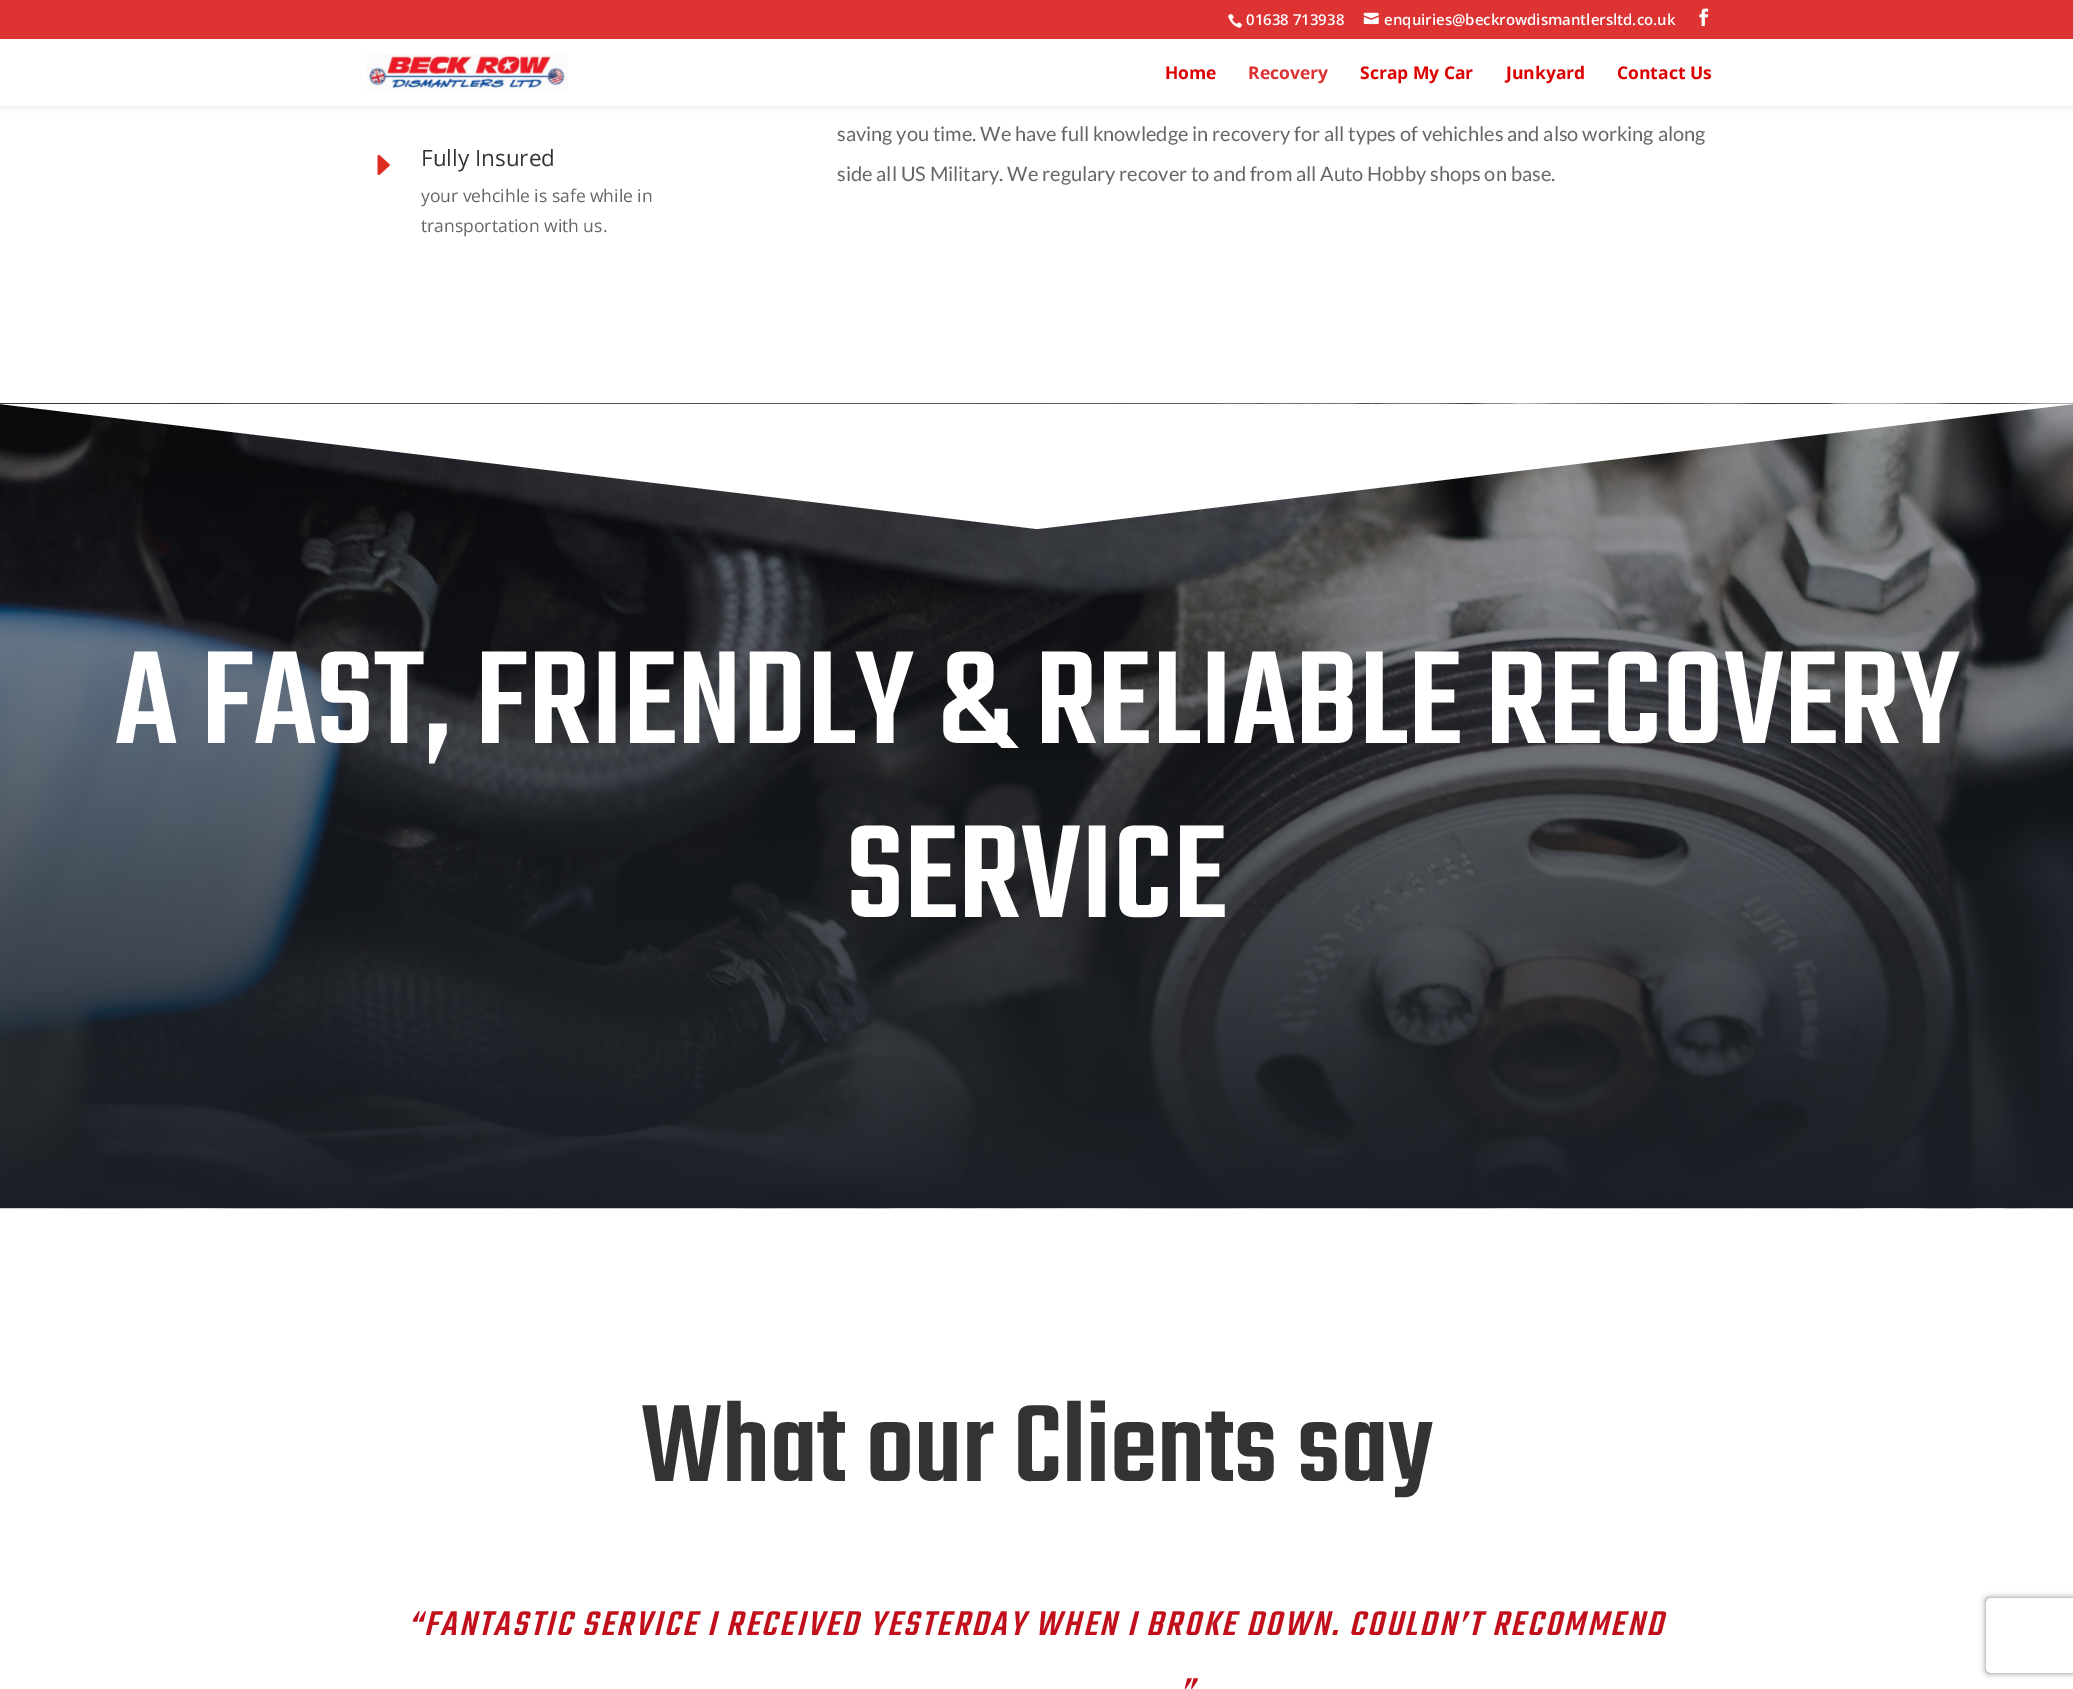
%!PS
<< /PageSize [2073 1689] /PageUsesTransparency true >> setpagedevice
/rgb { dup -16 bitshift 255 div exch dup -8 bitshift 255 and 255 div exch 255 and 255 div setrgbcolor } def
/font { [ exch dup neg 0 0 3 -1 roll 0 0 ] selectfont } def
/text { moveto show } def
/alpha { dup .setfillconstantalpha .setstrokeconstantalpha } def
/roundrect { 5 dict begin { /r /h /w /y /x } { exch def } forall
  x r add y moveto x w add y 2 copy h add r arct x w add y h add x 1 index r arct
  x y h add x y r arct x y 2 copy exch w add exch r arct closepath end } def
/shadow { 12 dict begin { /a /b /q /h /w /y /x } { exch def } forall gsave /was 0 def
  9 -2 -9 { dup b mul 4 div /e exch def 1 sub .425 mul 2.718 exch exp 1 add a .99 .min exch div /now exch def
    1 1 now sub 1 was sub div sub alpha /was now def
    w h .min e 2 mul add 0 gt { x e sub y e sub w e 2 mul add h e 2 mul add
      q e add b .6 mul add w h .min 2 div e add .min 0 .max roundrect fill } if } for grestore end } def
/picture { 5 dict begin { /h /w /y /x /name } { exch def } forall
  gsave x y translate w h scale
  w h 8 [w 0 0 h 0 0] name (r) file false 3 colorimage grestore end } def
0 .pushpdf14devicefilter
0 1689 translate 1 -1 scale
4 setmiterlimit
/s1 { /OpenSans-SemiBold 15 font 16#FFFFFF rgb } def
/s2 { /OpenSans-Bold 17.5 font 16#DD0000 rgb } def
/s3 { /OpenSans-Bold 17.5 font 16#DD3333 rgb } def
/s4 { /OpenSans-Regular 22.5 font 16#333333 rgb } def
/s5 { /OpenSans-Regular 17.5 font 16#666666 rgb } def
/s6 { /Lato-Regular 20 font 16#666666 rgb } def
/s7 { /Teko-Medium 145.2 font 16#FFFFFF rgb } def
/s8 { /Teko-Medium 120 font 16#333333 rgb } def
16#FFFFFF rgb
0 0 2073 1689 rectfill
16#000000 rgb
0 39 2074 67 0 4.5 0.1 shadow
16#DD3333 rgb
0 0 2073 39 rectfill
(pic1.raw) 1228 14 14 14 picture
s1
(01638 713938) 1246 25 text
(pic2.raw) 1363 12 16 13 picture
(enquiries@beckrowdismantlersltd.co.uk) 1384 25 text
(pic3.raw) 1699 8 10 19 picture
0 39 2073 67 rectfill
(pic4.raw) 367 54 201 37 picture
s2
(Home) 1165 79 text
s3
(Recovery) 1248 79 text
s2
(Scrap My Car) 1360 79 text
(Junkyard) 1506 79 text
(Contact Us) 1617 79 text
(pic5.raw) 377 155 13 20 picture
s4
(Fully Insured) 421 166 text
s5
(your vehcihle is safe while in) 421 202 text
(transportation with us.) 421 232 text
s6
(saving you time. We have full knowledge in recovery for all types of vehichles and also working along) 837 141 text
(side all US Military. We regulary recover to and from all Auto Hobby shops on base.) 837 181 text
(pic6.raw) 0 403 2073 806 picture
16#FFFFFF rgb
1037 529 moveto 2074 404 lineto 0 404 lineto closepath fill
s7
(A FAST, FRIENDLY & RELIABLE RECOVERY) 115 743 text
(SERVICE) 846 917 text
s8
(What our Clients say) 641 1481 text
/Teko-MediumItalic 37.5 font
16#C10F1B rgb
408 1635 moveto 2.5 0 (“FANTASTIC SERVICE I RECEIVED YESTERDAY WHEN I BROKE DOWN. COULDN’T RECOMMEND) ashow
1180 1702 moveto 2.5 0 (”) ashow
gsave
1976 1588 moveto 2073 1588 lineto 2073 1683 lineto 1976 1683 lineto closepath 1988.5 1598 moveto 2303.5 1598 lineto 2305 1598 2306 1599 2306 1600.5 curveto 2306 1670.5 lineto 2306 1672 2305 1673 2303.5 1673 curveto 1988.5 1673 lineto 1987 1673 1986 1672 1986 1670.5 curveto 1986 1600.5 lineto 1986 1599 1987 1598 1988.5 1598 curveto closepath eoclip newpath
16#808080 rgb
1986 1598 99 75 2.5 3 1 shadow
grestore
.poppdf14devicefilter showpage
